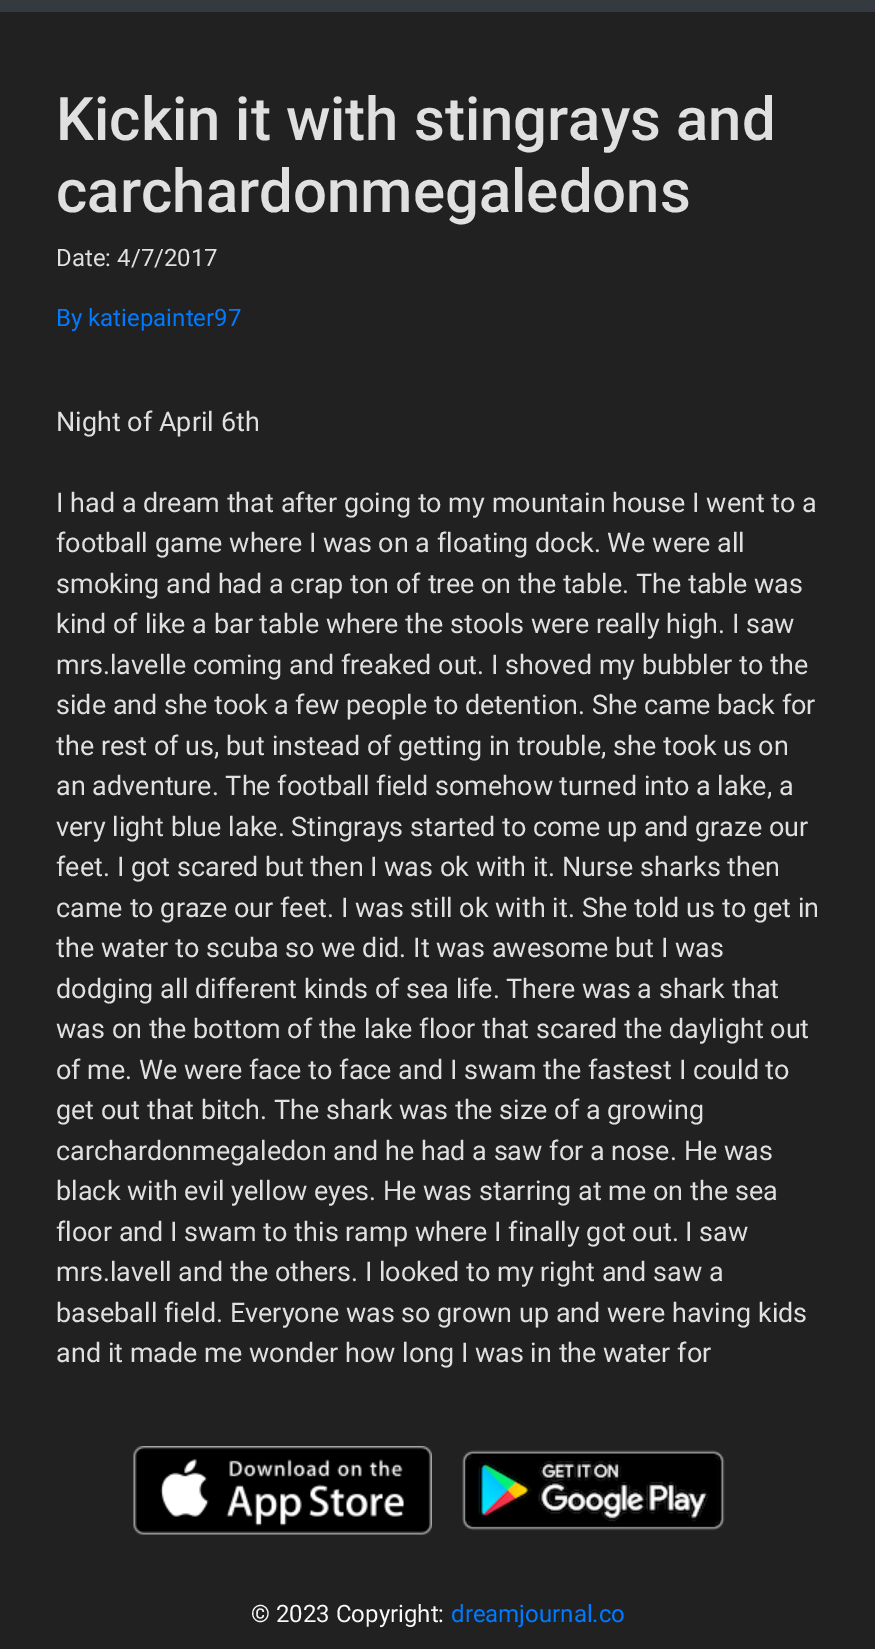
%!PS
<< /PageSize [875 1649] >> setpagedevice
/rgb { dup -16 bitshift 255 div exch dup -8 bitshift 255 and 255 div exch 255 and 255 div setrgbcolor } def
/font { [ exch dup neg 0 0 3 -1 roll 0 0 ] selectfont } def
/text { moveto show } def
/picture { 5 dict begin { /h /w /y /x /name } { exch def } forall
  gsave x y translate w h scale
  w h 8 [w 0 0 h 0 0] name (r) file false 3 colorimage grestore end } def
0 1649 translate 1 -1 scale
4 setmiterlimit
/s1 { /Roboto-Medium 60 font 16#E0E0E0 rgb } def
/s2 { /Roboto-Regular 24 font 16#E0E0E0 rgb } def
/s3 { /Roboto-Regular 24 font 16#007BFF rgb } def
/s4 { /Roboto-Regular 27 font 16#E0E0E0 rgb } def
/s5 { /Roboto-Regular 24 font 16#F8F9FA rgb } def
16#212121 rgb
0 0 875 1649 rectfill
16#343A40 rgb
0 0 875 12 rectfill
s1
(Kickin it with stingrays and) 56 140 text
(carchardonmegaledons) 56 212 text
s2
(Date: 4/7/2017) 56 266 text
s3
(By katiepainter97) 56 326 text
s4
(Night of April 6th) 56 431 text
(I had a dream that after going to my mountain house I went to a) 56 512 text
(football game where I was on a floating dock. We were all) 56 552 text
(smoking and had a crap ton of tree on the table. The table was) 56 593 text
(kind of like a bar table where the stools were really high. I saw) 56 633 text
(mrs.lavelle coming and freaked out. I shoved my bubbler to the) 56 674 text
(side and she took a few people to detention. She came back for) 56 714 text
(the rest of us, but instead of getting in trouble, she took us on) 56 755 text
(an adventure. The football field somehow turned into a lake, a) 56 795 text
(very light blue lake. Stingrays started to come up and graze our) 56 836 text
(feet. I got scared but then I was ok with it. Nurse sharks then) 56 876 text
(came to graze our feet. I was still ok with it. She told us to get in) 56 917 text
(the water to scuba so we did. It was awesome but I was) 56 957 text
(dodging all different kinds of sea life. There was a shark that) 56 998 text
(was on the bottom of the lake floor that scared the daylight out) 56 1038 text
(of me. We were face to face and I swam the fastest I could to) 56 1079 text
(get out that bitch. The shark was the size of a growing) 56 1119 text
(carchardonmegaledon and he had a saw for a nose. He was) 56 1160 text
(black with evil yellow eyes. He was starring at me on the sea) 56 1200 text
(floor and I swam to this ramp where I finally got out. I saw) 56 1241 text
(mrs.lavell and the others. I looked to my right and saw a) 56 1281 text
(baseball field. Everyone was so grown up and were having kids) 56 1322 text
(and it made me wonder how long I was in the water for) 56 1362 text
(pic1.raw) 133 1446 299 89 picture
(pic2.raw) 462 1450 263 81 picture
s5
(© 2023 Copyright:) 251 1622 text
s3
(dreamjournal.co) 451 1622 text
showpage
